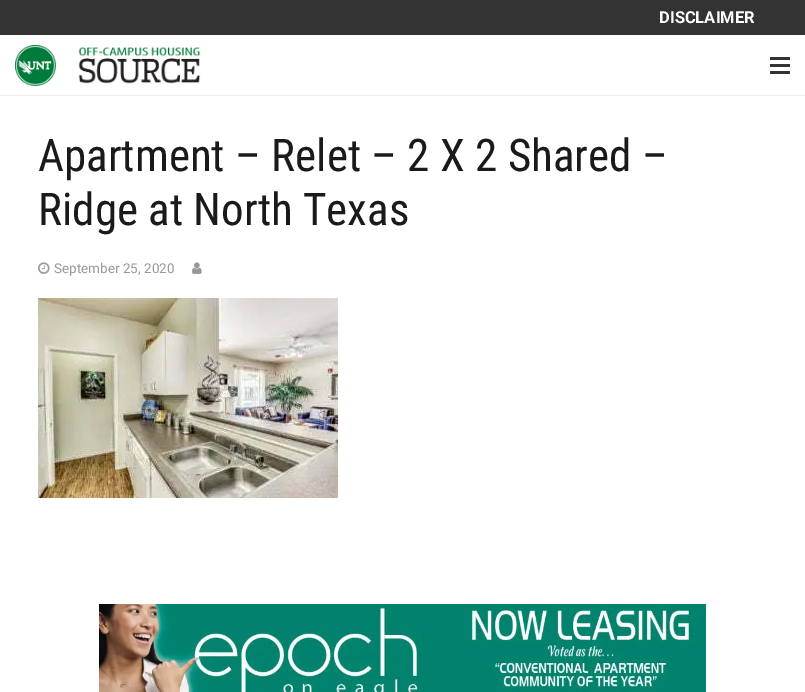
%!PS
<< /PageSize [805 692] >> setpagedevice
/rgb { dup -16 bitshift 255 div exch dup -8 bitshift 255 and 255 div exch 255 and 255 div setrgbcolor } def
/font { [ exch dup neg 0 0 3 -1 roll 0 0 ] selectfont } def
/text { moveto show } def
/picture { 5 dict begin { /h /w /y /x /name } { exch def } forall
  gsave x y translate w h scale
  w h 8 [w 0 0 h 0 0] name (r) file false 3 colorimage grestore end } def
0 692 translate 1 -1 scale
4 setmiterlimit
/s1 { /Roboto-Bold 16.5 font 16#FFFFFF rgb } def
/s2 { /RobotoCondensed-Regular 45 font 16#1A1A1A rgb } def
/s3 { /Roboto-Regular 13.5 font 16#999999 rgb } def
16#FFFFFF rgb
0 0 805 692 rectfill
16#333333 rgb
0 0 805 35 rectfill
s1
(DISCLAIMER) 659 23 text
16#EBEBEB rgb
0 95 805 1 rectfill
(pic1.raw) 15 45 41 41 picture
(pic2.raw) 78 47 123 37 picture
16#333333 rgb
770 64 20 3 rectfill
770 57 20 3 rectfill
770 71 20 3 rectfill
s2
(Apartment – Relet – 2 X 2 Shared –) 38 171 text
(Ridge at North Texas) 38 225 text
(pic3.raw) 38 262 12 12 picture
s3
(September 25, 2020) 54 273 text
(pic4.raw) 192 262 10 12 picture
(pic5.raw) 38 298 300 200 picture
(pic6.raw) 99 604 607 88 picture
showpage
